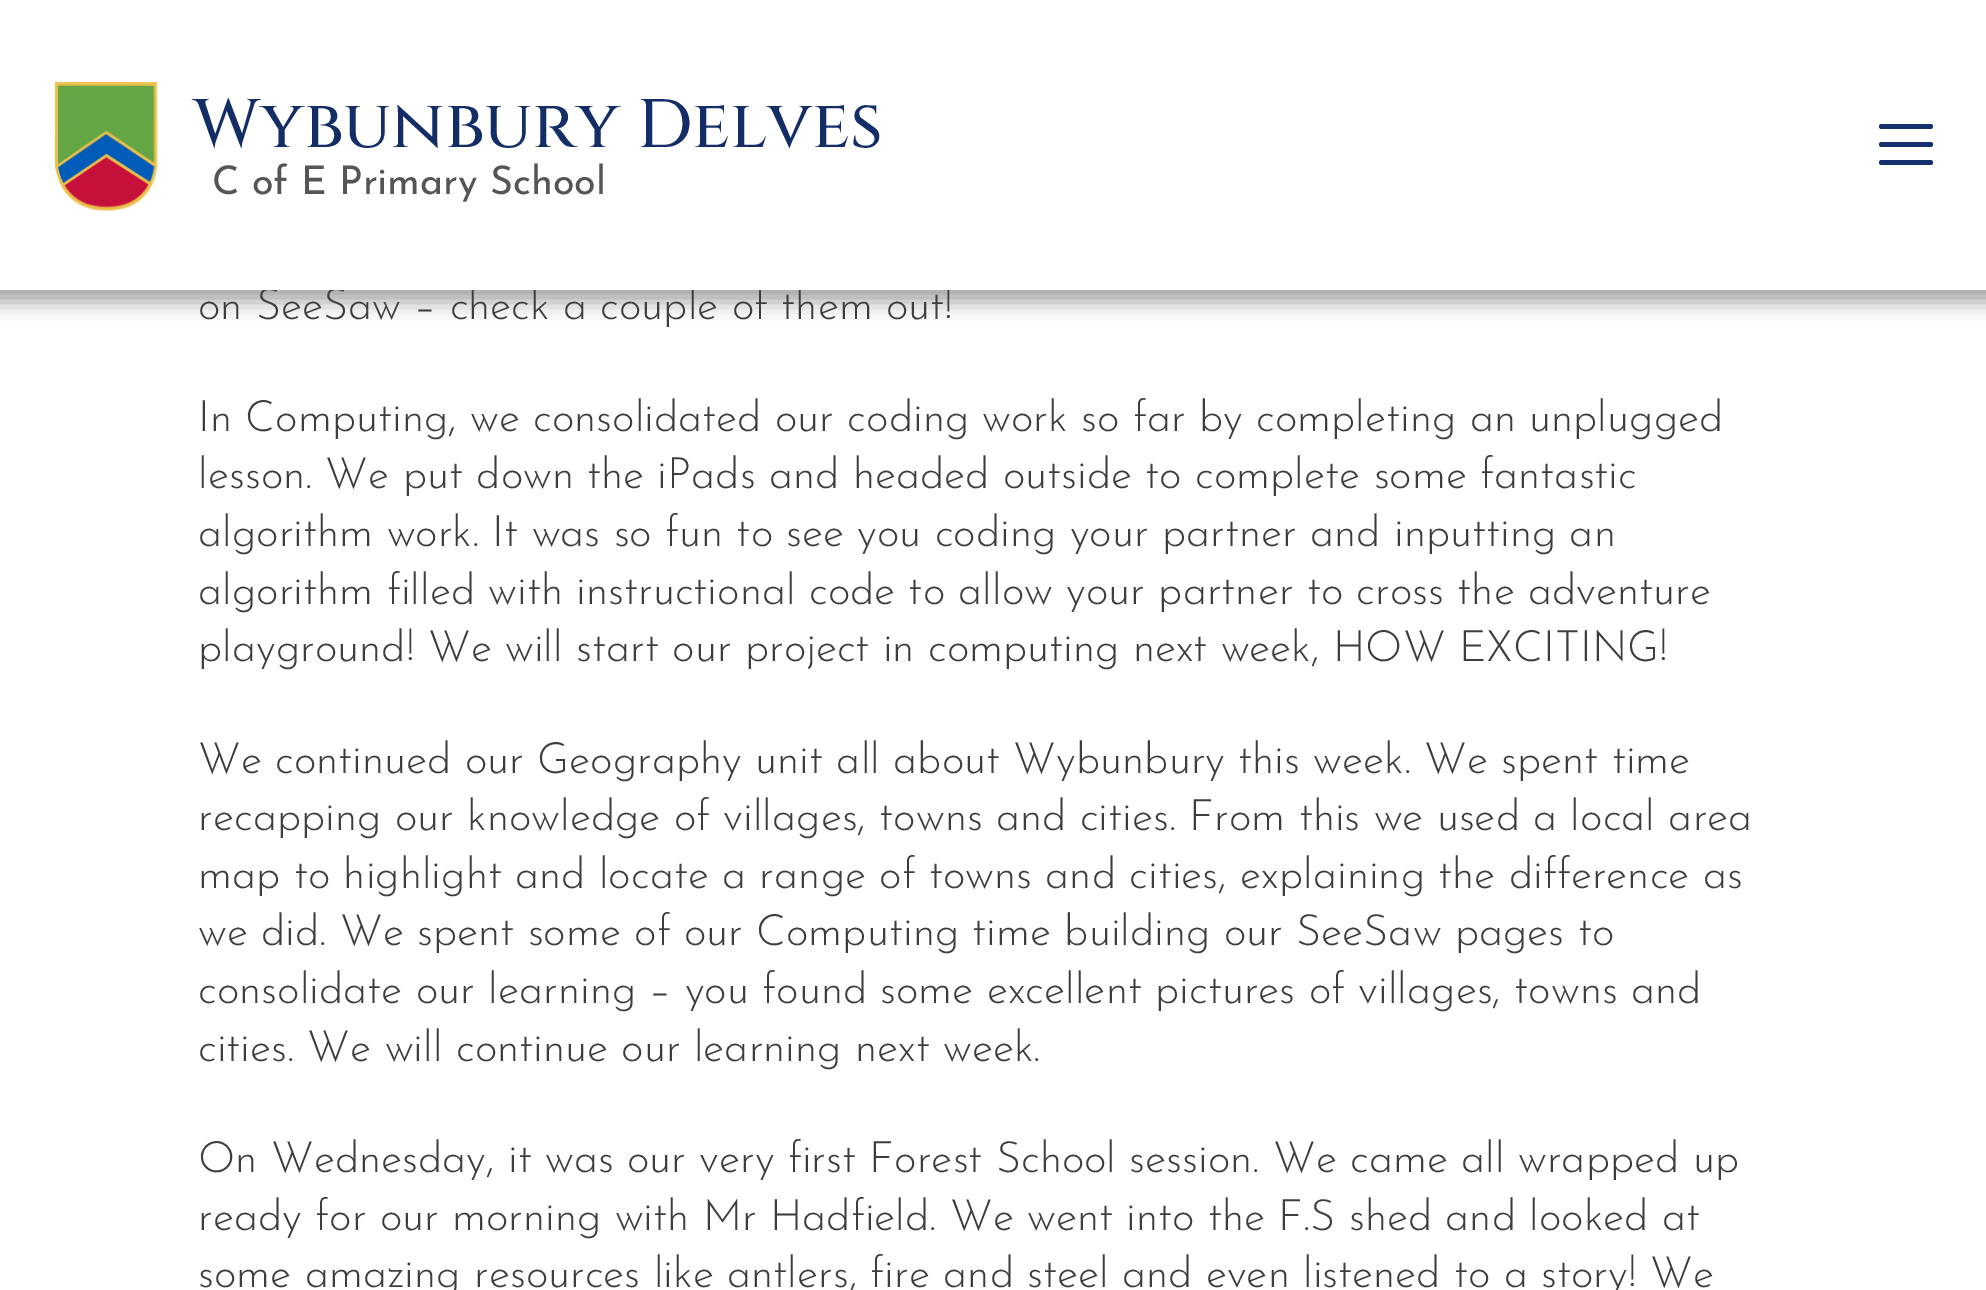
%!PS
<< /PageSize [1986 1290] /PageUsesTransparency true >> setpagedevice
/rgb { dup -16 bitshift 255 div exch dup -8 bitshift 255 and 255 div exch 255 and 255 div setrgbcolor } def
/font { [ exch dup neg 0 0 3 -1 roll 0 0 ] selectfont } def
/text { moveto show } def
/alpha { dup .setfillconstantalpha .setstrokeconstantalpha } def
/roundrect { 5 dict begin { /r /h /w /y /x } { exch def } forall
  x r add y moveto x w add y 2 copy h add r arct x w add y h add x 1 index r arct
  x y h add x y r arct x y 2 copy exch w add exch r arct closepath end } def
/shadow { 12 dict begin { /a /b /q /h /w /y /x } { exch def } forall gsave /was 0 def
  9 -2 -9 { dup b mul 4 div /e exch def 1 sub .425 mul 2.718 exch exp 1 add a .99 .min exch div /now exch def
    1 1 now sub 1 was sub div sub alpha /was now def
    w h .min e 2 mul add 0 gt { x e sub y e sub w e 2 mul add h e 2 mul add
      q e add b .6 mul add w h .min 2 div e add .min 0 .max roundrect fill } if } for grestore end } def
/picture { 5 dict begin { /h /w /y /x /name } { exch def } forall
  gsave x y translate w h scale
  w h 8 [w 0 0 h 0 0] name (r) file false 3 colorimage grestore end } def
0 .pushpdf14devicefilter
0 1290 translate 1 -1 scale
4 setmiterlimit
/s1 { /JosefinSans-Light 43.2 font 16#3D3D3D rgb } def
/s2 { /Cinzel-Medium 68.4 font 16#132D66 rgb } def
/s3 { /JosefinSans-Regular 39.5 font 16#555555 rgb } def
16#FFFFFF rgb
0 0 1986 1290 rectfill
16#000000 rgb
-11 -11 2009 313 0 10 0.35 shadow
s1
(on SeeSaw – check a couple of them out!) 198 319 text
16#FFFFFF rgb
0 0 1986 290 rectfill
(pic1.raw) 54 81 104 131 picture
s2
(Wybunbury Delves) 193 147 text
s3
(C of E Primary School) 212 194 text
16#14306F rgb
1879 124 54 5 2.5 roundrect fill
1879 142 54 5 2.5 roundrect fill
1879 160 54 5 2.5 roundrect fill
s1
(In Computing, we consolidated our coding work so far by completing an unplugged) 198 431 text
(lesson. We put down the iPads and headed outside to complete some fantastic) 198 488 text
(algorithm work. It was so fun to see you coding your partner and inputting an) 198 546 text
(algorithm filled with instructional code to allow your partner to cross the adventure) 198 604 text
(playground! We will start our project in computing next week, HOW EXCITING!) 198 661 text
(We continued our Geography unit all about Wybunbury this week. We spent time) 198 773 text
(recapping our knowledge of villages, towns and cities. From this we used a local area) 198 830 text
(map to highlight and locate a range of towns and cities, explaining the difference as) 198 888 text
(we did. We spent some of our Computing time building our SeeSaw pages to) 198 945 text
(consolidate our learning – you found some excellent pictures of villages, towns and) 198 1003 text
(cities. We will continue our learning next week.) 198 1061 text
(On Wednesday, it was our very first Forest School session. We came all wrapped up) 198 1172 text
(ready for our morning with Mr Hadfield. We went into the F.S shed and looked at) 198 1230 text
(some amazing resources like antlers, fire and steel and even listened to a story! We) 198 1287 text
.poppdf14devicefilter showpage
